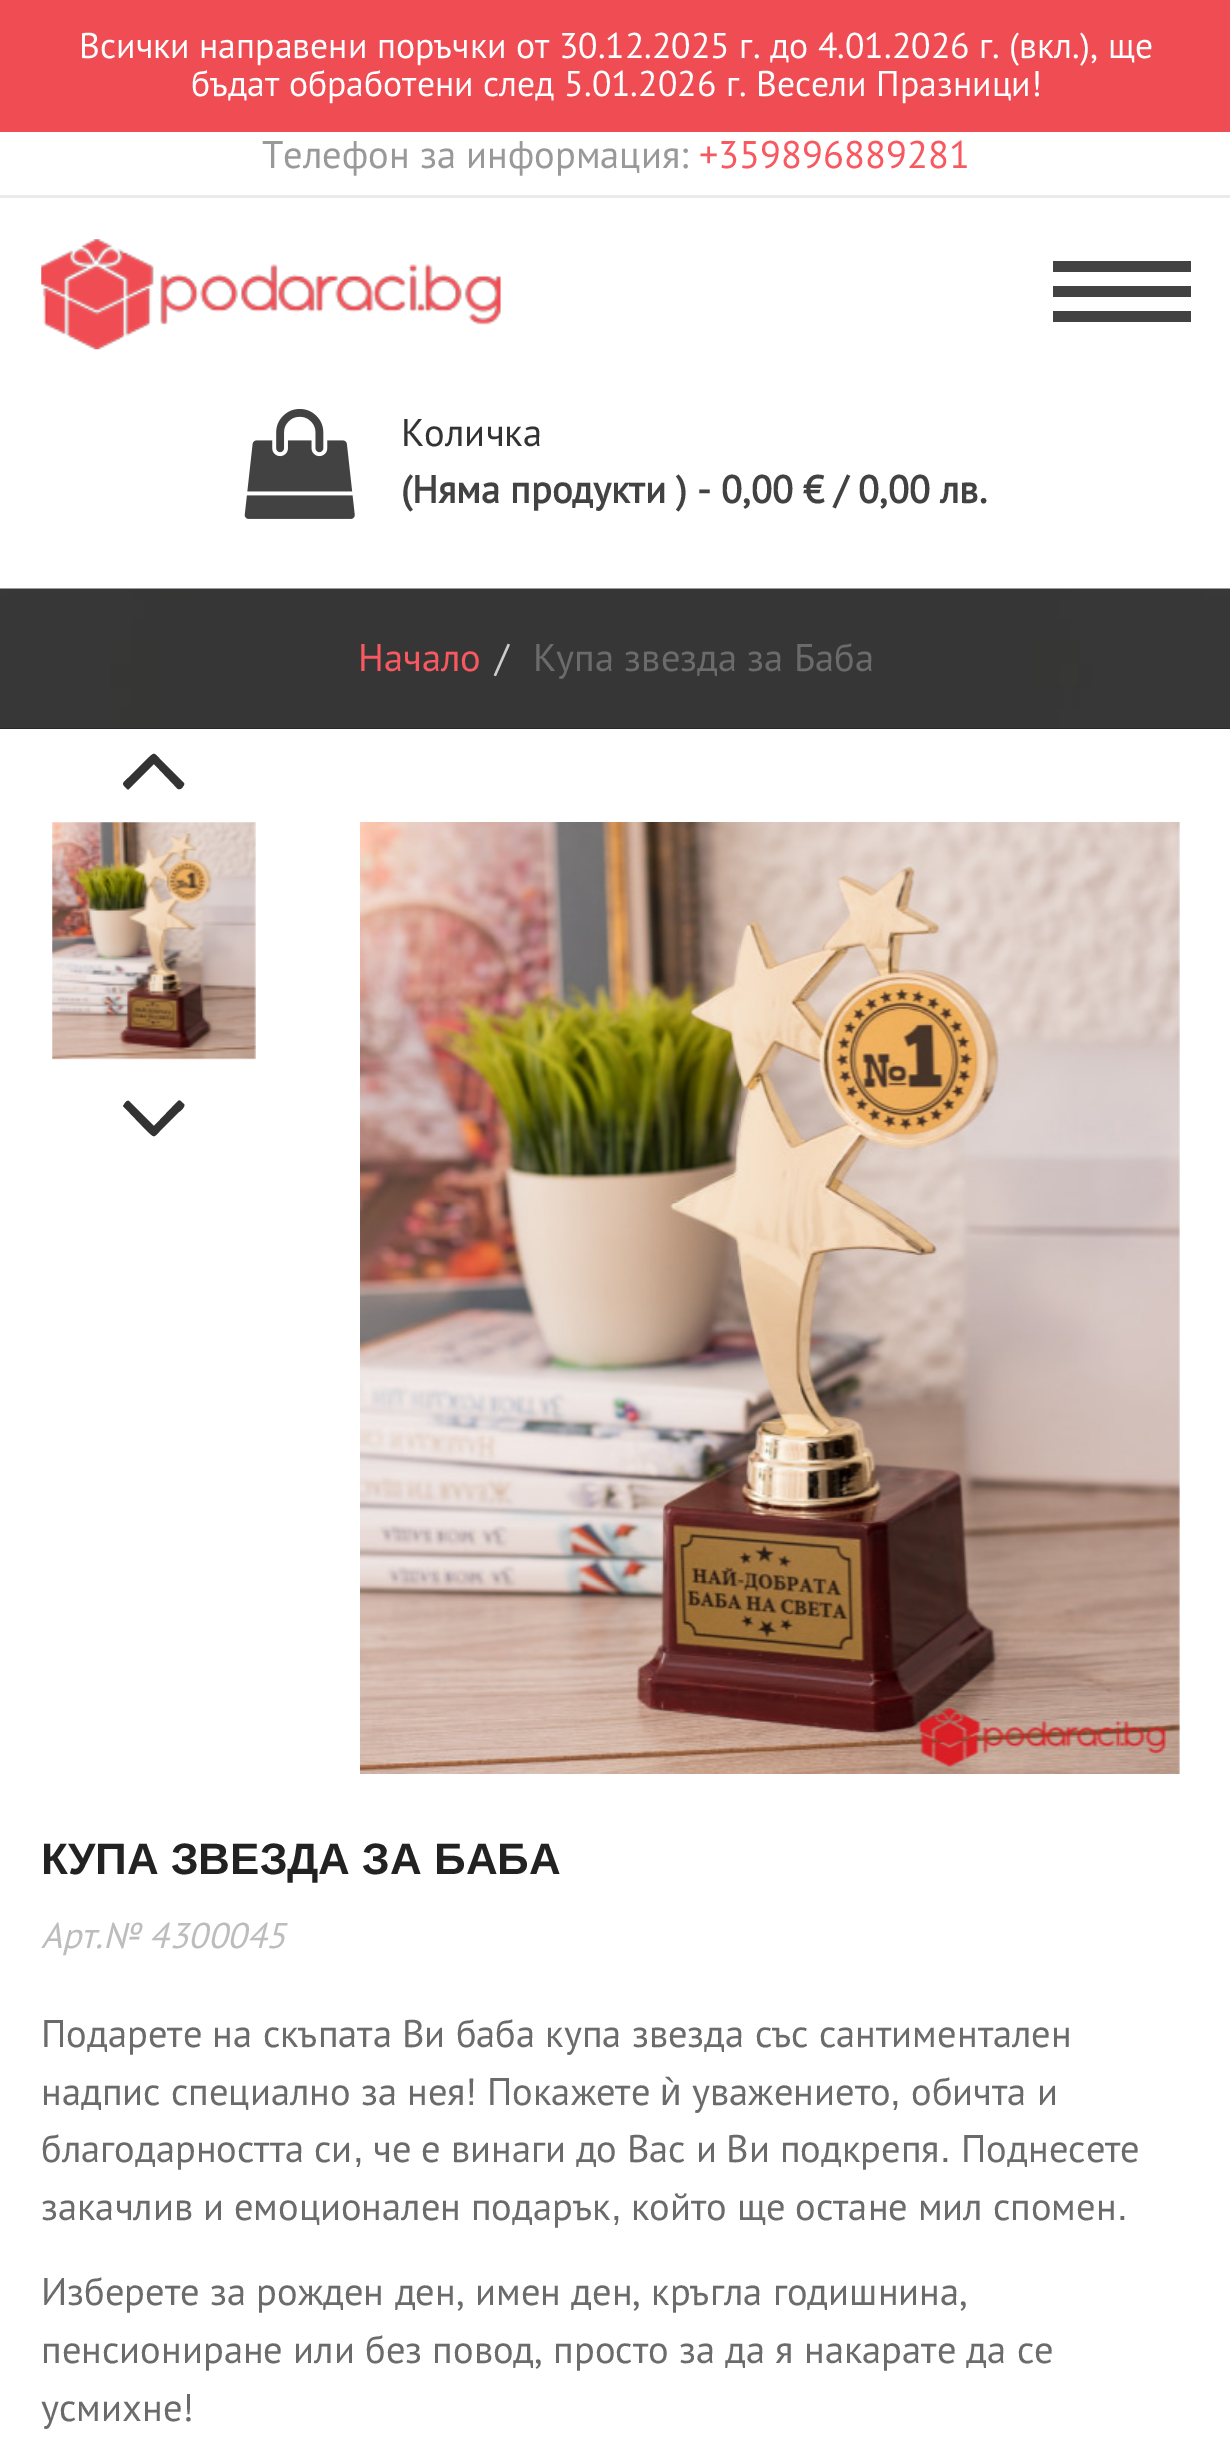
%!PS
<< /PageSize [1230 2446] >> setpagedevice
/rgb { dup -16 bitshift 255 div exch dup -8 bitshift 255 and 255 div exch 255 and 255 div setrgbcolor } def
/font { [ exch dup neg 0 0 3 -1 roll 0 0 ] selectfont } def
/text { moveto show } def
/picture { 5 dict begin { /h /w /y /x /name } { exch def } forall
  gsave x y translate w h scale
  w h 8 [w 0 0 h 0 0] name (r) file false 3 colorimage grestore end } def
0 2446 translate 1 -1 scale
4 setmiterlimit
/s1 { /PTSans-Regular 35.75 font 16#FFFFFF rgb } def
/s2 { /PTSans-Regular 38.5 font 16#999999 rgb } def
/s3 { /PTSans-Regular 38.5 font 16#F85860 rgb } def
/s4 { /PTSans-Regular 38.5 font 16#333333 rgb } def
/s5 { /PTSans-Bold 38.5 font 16#424242 rgb } def
/s6 { /PTSans-Regular 38.5 font 16#CCCCCC rgb } def
/s7 { /PTSans-Regular 38.5 font 16#6B6B6B rgb } def
/s8 { /LiberationSans-Bold 44 font 16#222222 rgb } def
/s9 { /PTSans-Italic 35.75 font 16#BDBDBD rgb } def
/s10 { /LiberationSans-Regular 38.5 font 16#6B6B6B rgb } def
16#FFFFFF rgb
0 0 1230 2446 rectfill
16#EF4C53 rgb
0 0 1230 132 rectfill
s1
(Всички направени поръчки от 30.12.2025 г. до 4.01.2026 г. \(вкл.\), ще) 79 58 text
(бъдат обработени след 5.01.2026 г. Весели Празници!) 191 96 text
16#EBEBEB rgb
0 195 1230 3 rectfill
s2
(Телефон за информация:) 262 168 text
s3
(+359896889281) 699 168 text
(pic1.raw) 41 239 460 111 picture
16#424242 rgb
1053 261 138 11 rectfill
1053 286 138 11 rectfill
1053 311 138 11 rectfill
(pic2.raw) 244 409 111 110 picture
s4
(Количка) 401 446 text
s5
(\(Няма продукти \) - 0,00 € / 0,00 лв.) 401 503 text
(pic3.raw) 0 588 1230 141 picture
s3
(Начало) 358 671 text
s6
(/) 495 671 text
s7
(Купа звезда за Баба) 533 671 text
16#333333 rgb
184 783 moveto 185 785 183 786 182 788 curveto 178 791 177 788 174 785 curveto 154 764 lineto 129 789 lineto 128 790 127 789 126 788 curveto 121 783 123 783 128 778 curveto 147 759 lineto 155 752 153 752 160 759 curveto closepath fill
184 1104 moveto 186 1107 179 1112 179 1112 curveto 160 1131 lineto 153 1138 155 1138 147 1131 curveto 124 1107 lineto 122 1106 124 1105 125 1103 curveto 126 1102 127 1100 129 1101 curveto 154 1126 lineto 178 1101 lineto 180 1099 182 1103 184 1104 curveto closepath fill
(pic4.raw) 52 822 204 238 picture
(pic5.raw) 360 822 820 952 picture
s8
(КУПА ЗВЕЗДА ЗА БАБА) 41 1874 text
s9
(Арт.№ 4300045) 41 1948 text
s7
(Подарете на скъпата Ви баба купа звезда със сантиментален) 41 2047 text
(надпис специално за нея) 41 2105 text
s10
(!) 466 2105 text
s7
(Покажете) 487 2105 text
s10
(ѝ) 660 2105 text
s7
(уважението) 692 2105 text
s10
(,) 890 2105 text
s7
(обичта и) 911 2105 text
41 2162 moveto -0.5 0 32 (благодарността си) widthshow
s10
(,) 353 2162 text
/PTSans-Regular 38.5 font
373 2162 moveto -0.5 0 32 (че е винаги до Вас и Ви подкрепя) widthshow
s10
(.) 940 2162 text
s7
(Поднесете) 961 2162 text
41 2220 moveto -0.5 0 32 (закачлив и емоционален подарък) widthshow
s10
(,) 611 2220 text
/PTSans-Regular 38.5 font
631 2220 moveto -0.5 0 32 (който ще остане мил спомен) widthshow
s10
(.) 1117 2220 text
s7
(Изберете за рожден ден, имен ден, кръгла годишнина,) 41 2305 text
(пенсиониране или без повод, просто за да я накарате да се) 41 2363 text
(усмихне!) 41 2421 text
showpage
